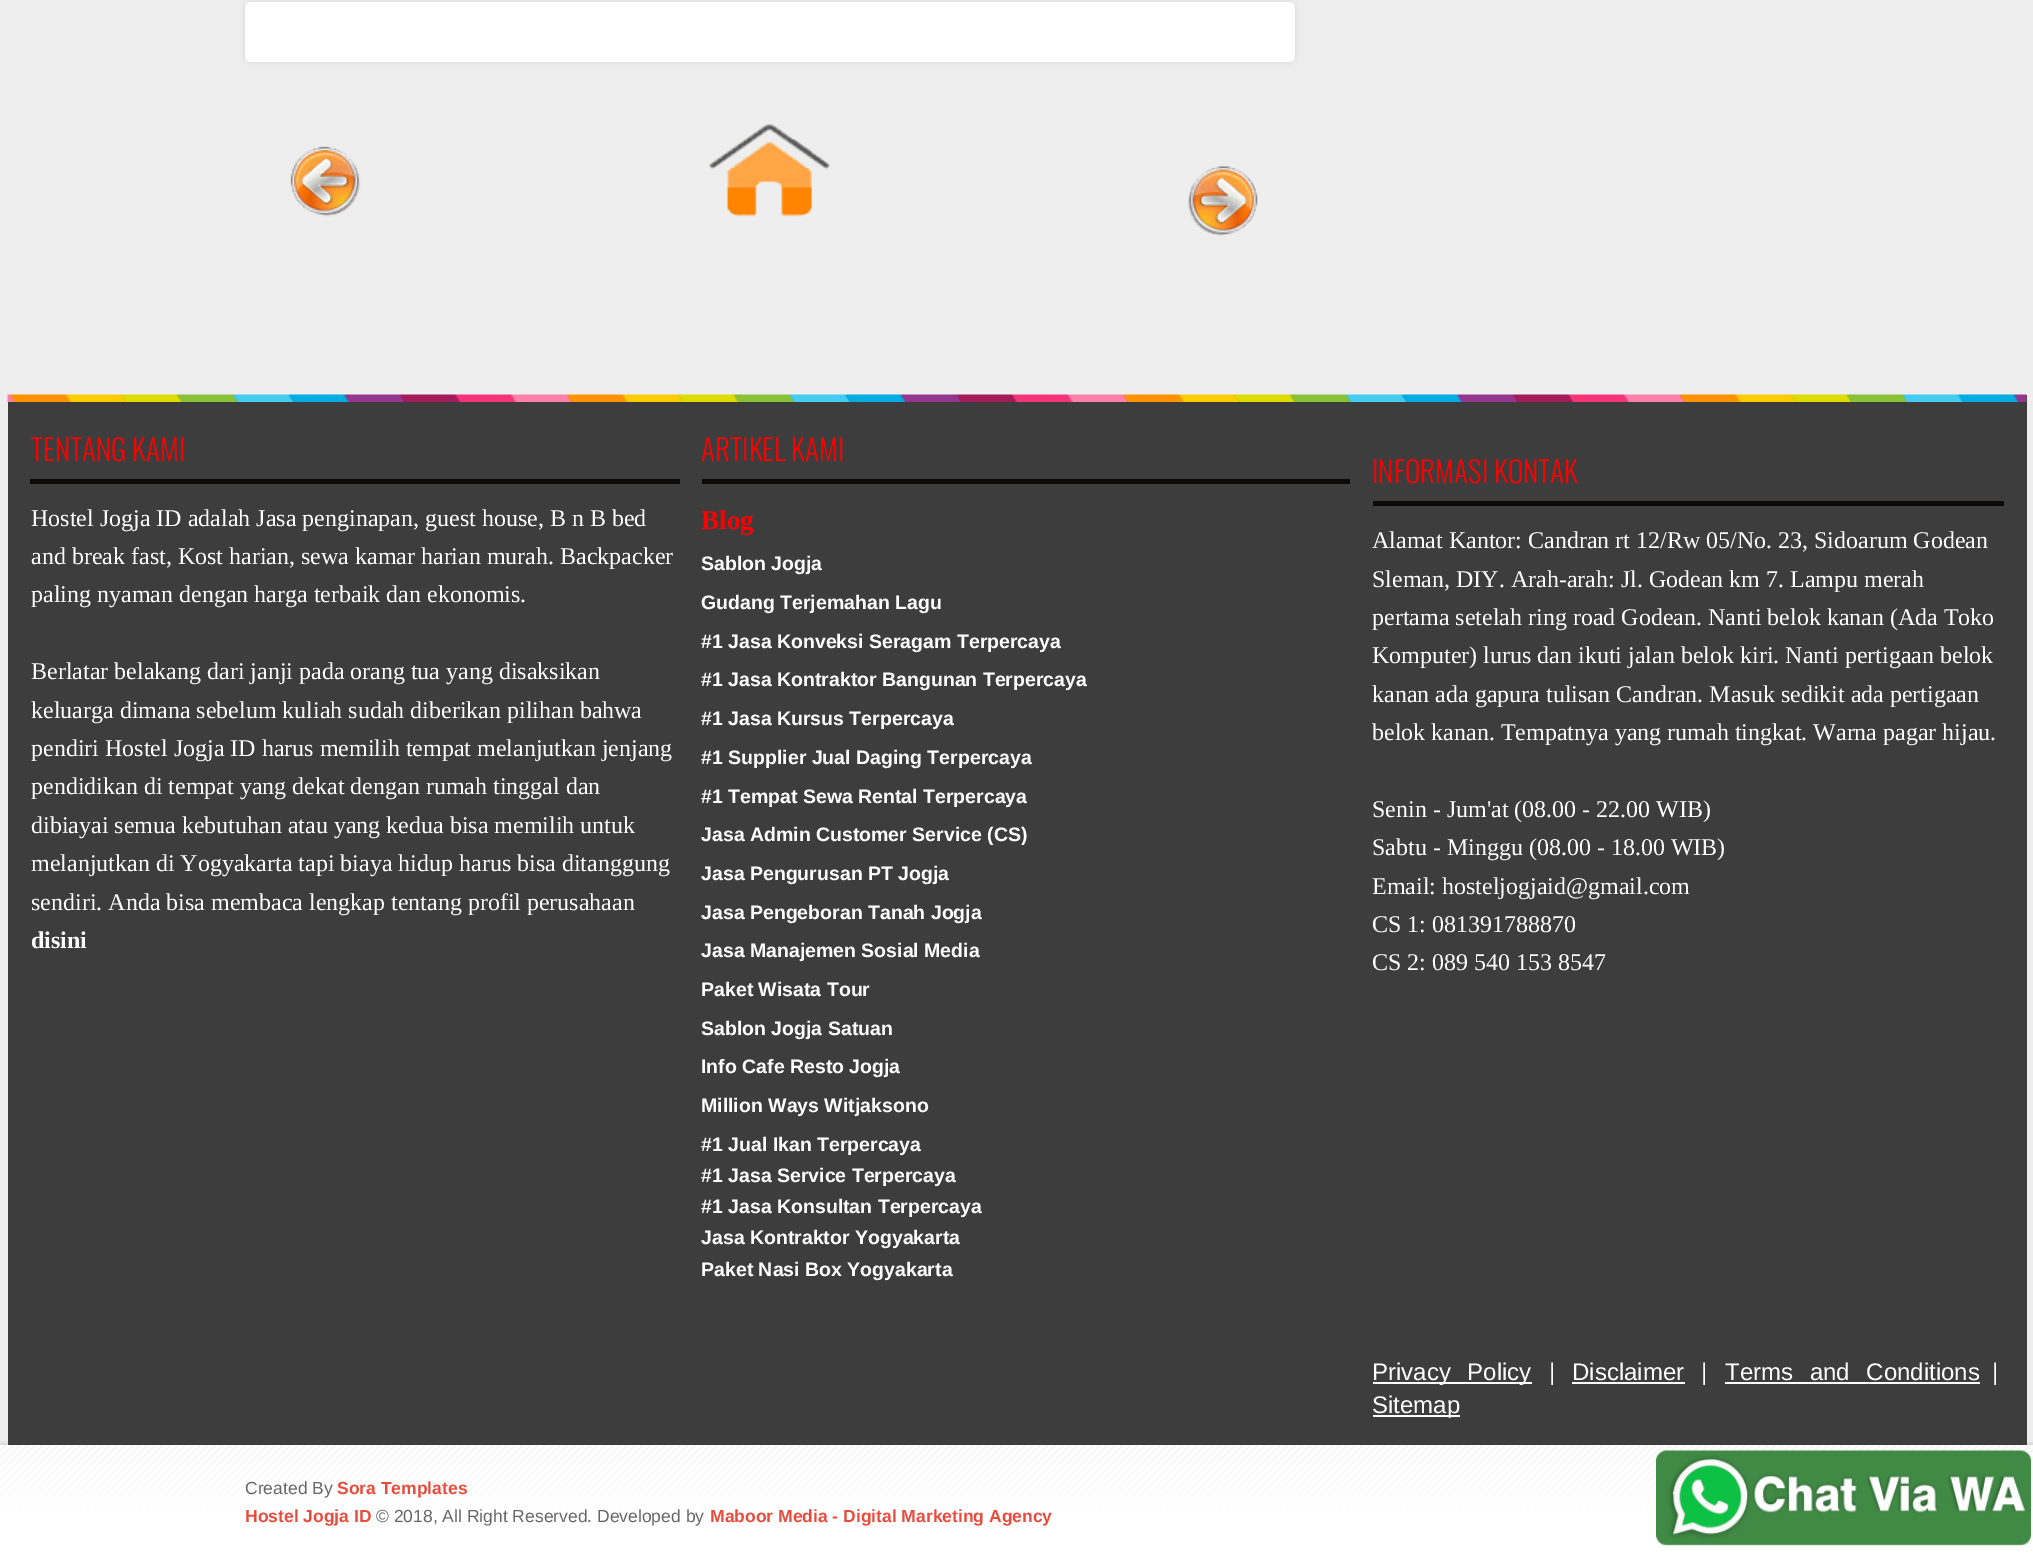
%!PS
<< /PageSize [2033 1561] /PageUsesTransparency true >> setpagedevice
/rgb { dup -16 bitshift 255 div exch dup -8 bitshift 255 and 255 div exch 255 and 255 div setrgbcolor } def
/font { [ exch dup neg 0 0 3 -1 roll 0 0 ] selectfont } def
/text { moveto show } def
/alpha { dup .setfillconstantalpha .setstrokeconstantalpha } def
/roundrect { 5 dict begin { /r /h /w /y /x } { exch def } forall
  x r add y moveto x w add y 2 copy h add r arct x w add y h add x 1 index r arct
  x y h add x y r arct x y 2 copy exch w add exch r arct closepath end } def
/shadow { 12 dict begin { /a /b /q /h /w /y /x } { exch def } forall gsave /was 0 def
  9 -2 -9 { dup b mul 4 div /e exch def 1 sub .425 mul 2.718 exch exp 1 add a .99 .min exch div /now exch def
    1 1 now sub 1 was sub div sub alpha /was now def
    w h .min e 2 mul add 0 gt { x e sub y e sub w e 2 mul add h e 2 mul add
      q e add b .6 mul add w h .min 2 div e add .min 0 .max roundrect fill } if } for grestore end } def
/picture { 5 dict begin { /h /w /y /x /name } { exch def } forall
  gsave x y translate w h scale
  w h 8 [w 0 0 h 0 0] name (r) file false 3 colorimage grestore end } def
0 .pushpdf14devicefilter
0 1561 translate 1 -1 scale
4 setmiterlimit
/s1 { /Oswald-Light 29.25 font 16#FF0000 rgb } def
/s2 { /LiberationSerif-Regular 24 font 16#FFFFFF rgb } def
/s3 { /LiberationSerif-Bold 24 font 16#FFFFFF rgb } def
/s4 { /LiberationSerif-Bold 27 font 16#FF0000 rgb } def
/s5 { /LiberationSans-Bold 19.5 font 16#FFFFFF rgb } def
/s6 { /LiberationSans-Regular 24 font 16#FFFFFF rgb } def
/s7 { /LiberationSans-Regular 17.5 font 16#666666 rgb } def
/s8 { /LiberationSans-Bold 17.5 font 16#E74C3C rgb } def
16#EEEEEE rgb
0 0 2033 1561 rectfill
16#000000 rgb
245 2 1050 60 6 3 0.1 shadow
16#FFFFFF rgb
245 2 1050 60 6 roundrect fill
(pic1.raw) 290 146 71 71 picture
(pic2.raw) 709 124 121 93 picture
(pic3.raw) 1187 166 71 70 picture
16#000000 rgb
0 1443 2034 117 0 1.5 0.1 shadow
16#3D3D3D rgb
8 395 2019 1050 rectfill
(pic4.raw) 7 394 2020 8 picture
16#0C0909 rgb
30 479 650 5 rectfill
s1
(TENTANG KAMI) 31 461 text
s2
(Hostel Jogja ID adalah Jasa penginapan, guest house, B n B bed) 31 526 text
(and break fast, Kost harian, sewa kamar harian murah. Backpacker) 31 564 text
(paling nyaman dengan harga terbaik dan ekonomis.) 31 602 text
(Berlatar belakang dari janji pada orang tua yang disaksikan) 31 679 text
(keluarga dimana sebelum kuliah sudah diberikan pilihan bahwa) 31 718 text
(pendiri Hostel Jogja ID harus memilih tempat melanjutkan jenjang) 31 756 text
(pendidikan di tempat yang dekat dengan rumah tinggal dan) 31 794 text
(dibiayai semua kebutuhan atau yang kedua bisa memilih untuk) 31 833 text
(melanjutkan di Yogyakarta tapi biaya hidup harus bisa ditanggung) 31 871 text
(sendiri. Anda bisa membaca lengkap tentang profil perusahaan) 31 910 text
s3
(disini) 31 948 text
16#0C0909 rgb
702 479 648 5 rectfill
s1
(ARTIKEL KAMI) 701 461 text
s4
(Blog) 701 529 text
s5
(Sablon Jogja) 701 570 text
(Gudang Terjemahan Lagu) 701 609 text
(#1 Jasa Konveksi Seragam Terpercaya) 701 648 text
(#1 Jasa Kontraktor Bangunan Terpercaya) 701 686 text
(#1 Jasa Kursus Terpercaya) 701 725 text
(#1 Supplier Jual Daging Terpercaya) 701 764 text
(#1 Tempat Sewa Rental Terpercaya) 701 803 text
(Jasa Admin Customer Service \(CS\)) 701 841 text
(Jasa Pengurusan PT Jogja) 701 880 text
(Jasa Pengeboran Tanah Jogja) 701 919 text
(Jasa Manajemen Sosial Media) 701 957 text
(Paket Wisata Tour) 701 996 text
(Sablon Jogja Satuan) 701 1035 text
(Info Cafe Resto Jogja) 701 1073 text
(Million Ways Witjaksono) 701 1112 text
(#1 Jual Ikan Terpercaya) 701 1151 text
(#1 Jasa Service Terpercaya) 701 1182 text
(#1 Jasa Konsultan Terpercaya) 701 1213 text
(Jasa Kontraktor Yogyakarta) 701 1244 text
(Paket Nasi Box Yogyakarta) 701 1276 text
16#0C0909 rgb
1373 501 631 5 rectfill
s1
(INFORMASI KONTAK) 1372 483 text
s2
(Alamat Kantor: Candran rt 12/Rw 05/No. 23, Sidoarum Godean) 1372 548 text
(Sleman, DIY. Arah-arah: Jl. Godean km 7. Lampu merah) 1372 587 text
(pertama setelah ring road Godean. Nanti belok kanan \(Ada Toko) 1372 625 text
(Komputer\) lurus dan ikuti jalan belok kiri. Nanti pertigaan belok) 1372 663 text
(kanan ada gapura tulisan Candran. Masuk sedikit ada pertigaan) 1372 702 text
(belok kanan. Tempatnya yang rumah tingkat. Warna pagar hijau.) 1372 740 text
(Senin - Jum'at \(08.00 - 22.00 WIB\)) 1372 817 text
(Sabtu - Minggu \(08.00 - 18.00 WIB\)) 1372 855 text
(Email: hosteljogjaid@gmail.com) 1372 894 text
(CS 1: 081391788870) 1372 932 text
(CS 2: 089 540 153 8547) 1372 970 text
1373 1382 159 2 rectfill
/LiberationSans-Regular 24 font
1372 1380 moveto 10 0 32 (Privacy Policy) widthshow
(|) 1549 1380 text
(Disclaimer) 1572 1380 text
1572 1382 113 2 rectfill
(|) 1701 1380 text
1725 1380 moveto 10 0 32 (Terms and Conditions) widthshow
1725 1382 255 2 rectfill
(|) 1992 1380 text
1373 1415 87 2 rectfill
(Sitemap) 1372 1413 text
0 1445 2033 116 rectfill
(pic6.raw) 0 1445 2033 62 picture
(pic5.raw) 1656 1450 375 96 picture
s7
(Created By) 245 1494 text
s8
(Sora Templates) 337 1494 text
(Hostel Jogja ID) 245 1522 text
s7
(© 2018, All Right Reserved. Developed by) 376 1522 text
s8
(Maboor Media - Digital Marketing Agency) 710 1522 text
.poppdf14devicefilter showpage
